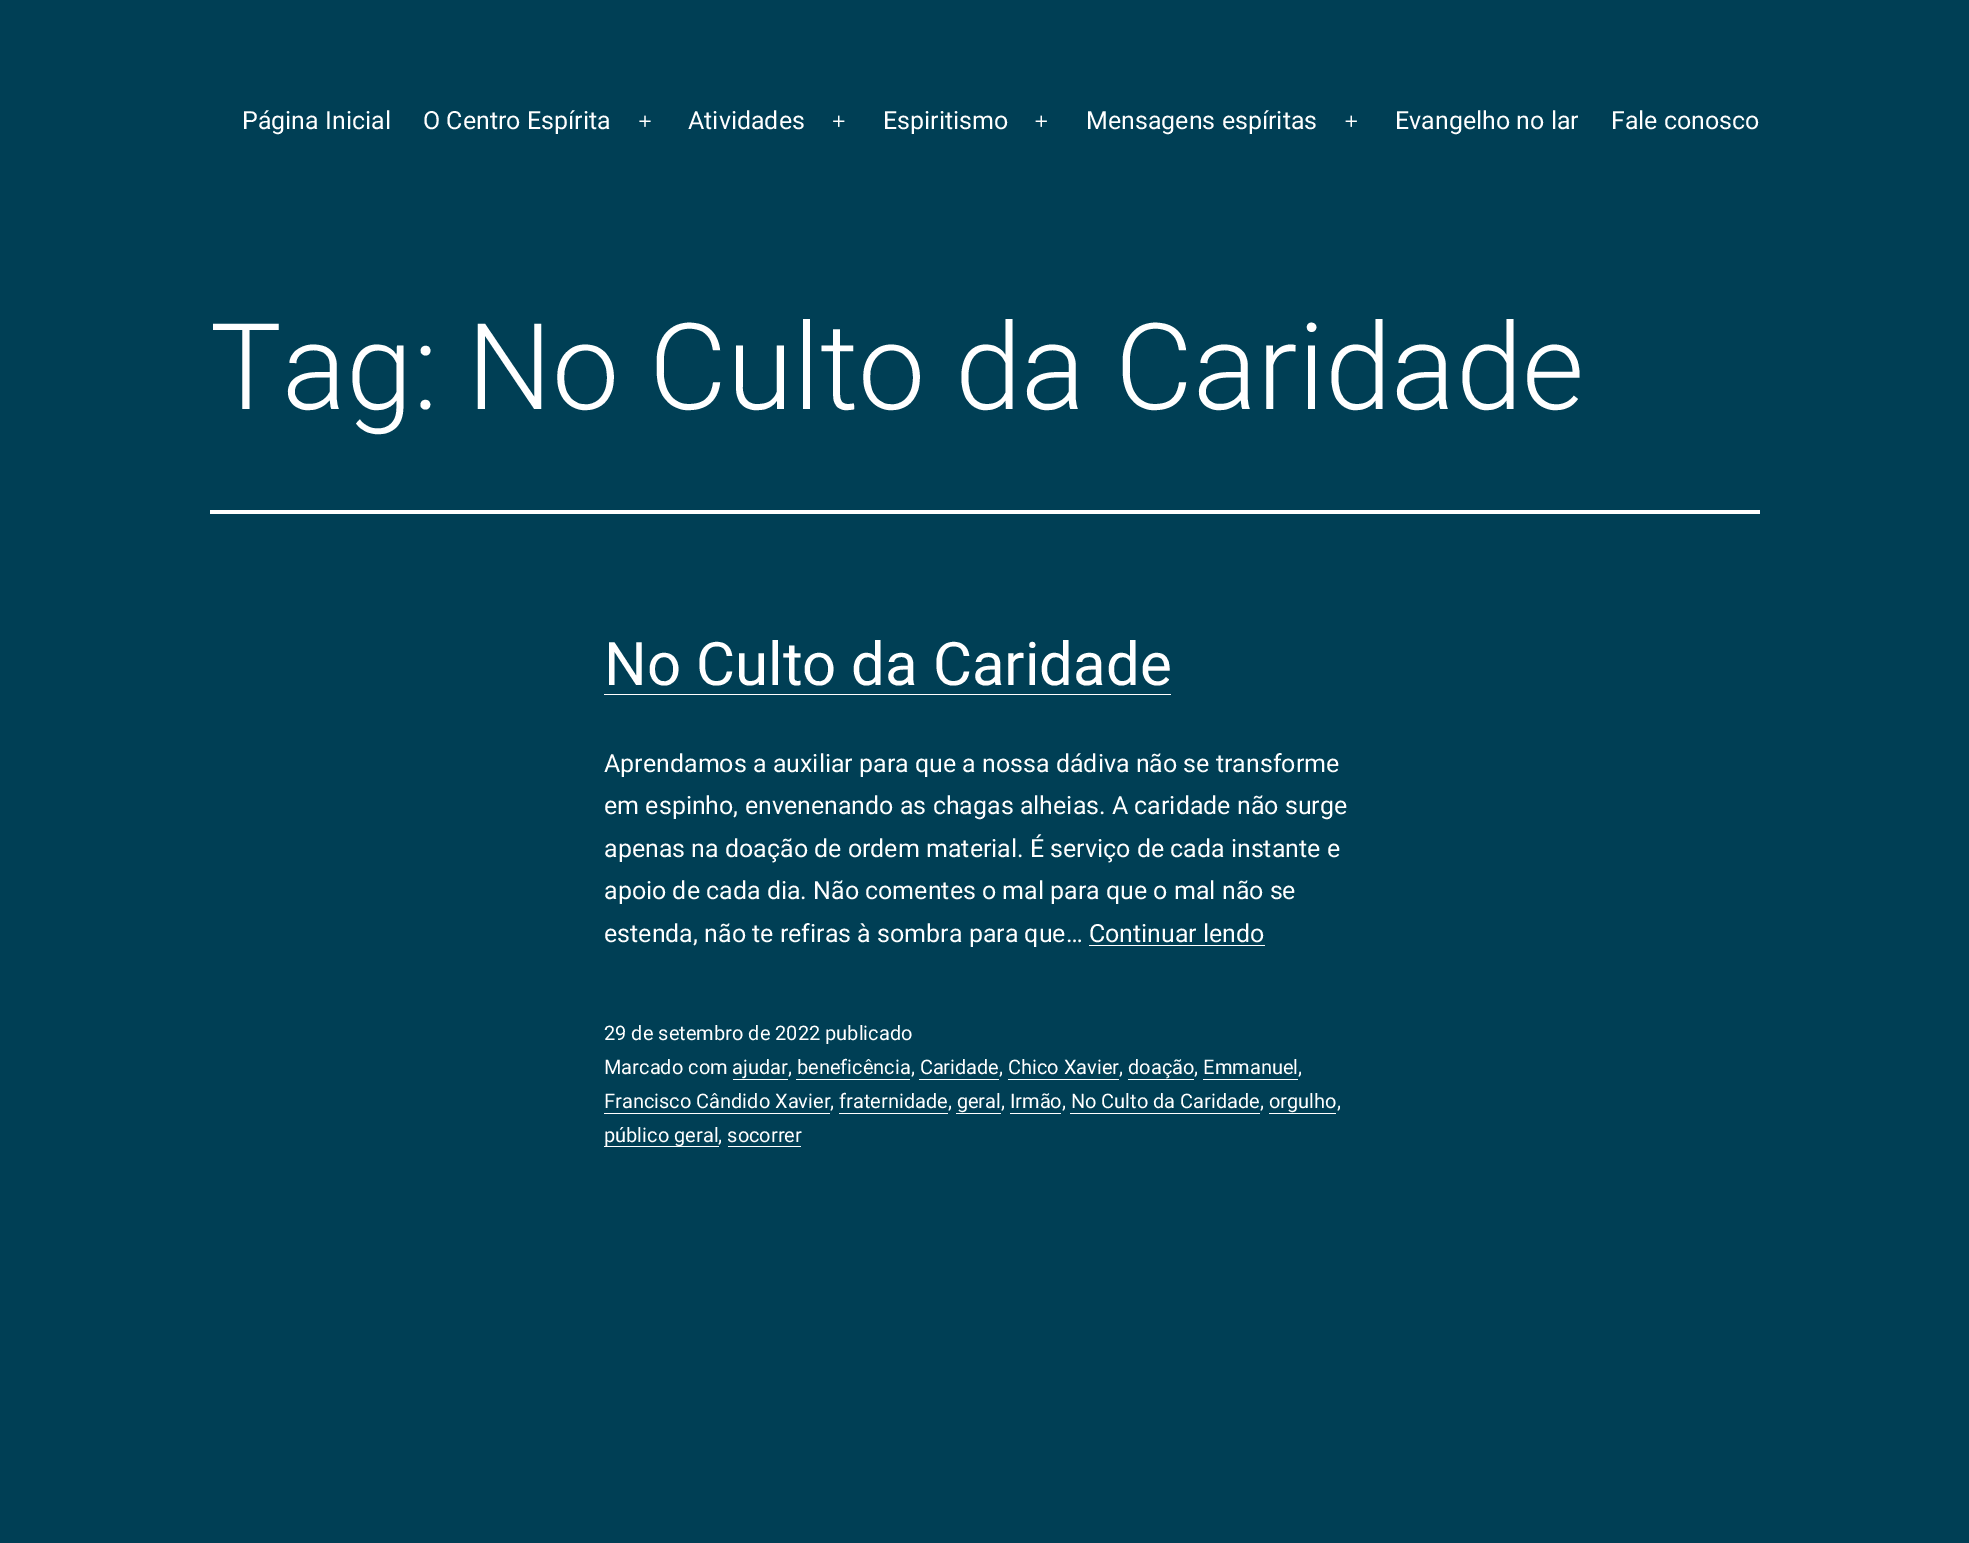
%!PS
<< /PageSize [1969 1543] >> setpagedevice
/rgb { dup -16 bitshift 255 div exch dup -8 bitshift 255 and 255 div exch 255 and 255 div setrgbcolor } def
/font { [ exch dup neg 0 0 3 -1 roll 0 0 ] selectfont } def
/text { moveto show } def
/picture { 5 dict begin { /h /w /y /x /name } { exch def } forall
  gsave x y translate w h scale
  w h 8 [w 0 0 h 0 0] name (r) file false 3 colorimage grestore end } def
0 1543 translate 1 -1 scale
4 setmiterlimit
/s1 { /Roboto-Regular 25 font 16#FFFFFF rgb } def
/s2 { /Roboto-Light 120 font 16#FFFFFF rgb } def
/s3 { /Roboto-Regular 60 font 16#FFFFFF rgb } def
/s4 { /Roboto-Regular 20 font 16#FFFFFF rgb } def
16#003F55 rgb
0 0 1969 1543 rectfill
s1
(Página Inicial) 242 129 text
(O Centro Espírita) 423 129 text
(pic1.raw) 639 115 12 12 picture
(Atividades) 688 129 text
(pic2.raw) 833 115 12 12 picture
(Espiritismo) 883 129 text
(pic3.raw) 1035 115 12 12 picture
(Mensagens espíritas) 1086 129 text
(pic3.raw) 1345 115 12 12 picture
(Evangelho no lar) 1395 129 text
(Fale conosco) 1611 129 text
210 510 1550 4 rectfill
s2
(Tag: No Culto da Caridade) 210 409 text
s3
(No Culto da Caridade) 604 685 text
604 694 567 1 rectfill
s1
(Aprendamos a auxiliar para que a nossa dádiva não se transforme) 604 772 text
(em espinho, envenenando as chagas alheias. A caridade não surge) 604 814 text
(apenas na doação de ordem material. É serviço de cada instante e) 604 857 text
(apoio de cada dia. Não comentes o mal para que o mal não se) 604 899 text
(estenda, não te refiras à sombra para que… Continuar lendo) 604 942 text
1089 945 176 1 rectfill
s4
(29 de setembro de 2022 publicado) 604 1040 text
(Marcado com ajudar, beneficência, Caridade, Chico Xavier, doação, Emmanuel,) 604 1074 text
733 1079 55 1 rectfill
796 1079 114 1 rectfill
919 1079 80 1 rectfill
1008 1079 111 1 rectfill
1128 1079 66 1 rectfill
1203 1079 95 1 rectfill
(Francisco Cândido Xavier, fraternidade, geral, Irmão, No Culto da Caridade, orgulho,) 604 1108 text
604 1113 226 1 rectfill
839 1113 109 1 rectfill
956 1113 45 1 rectfill
1010 1113 51 1 rectfill
1070 1113 190 1 rectfill
1269 1113 67 1 rectfill
604 1146 115 1 rectfill
(público geral, socorrer) 604 1142 text
728 1146 73 1 rectfill
showpage
